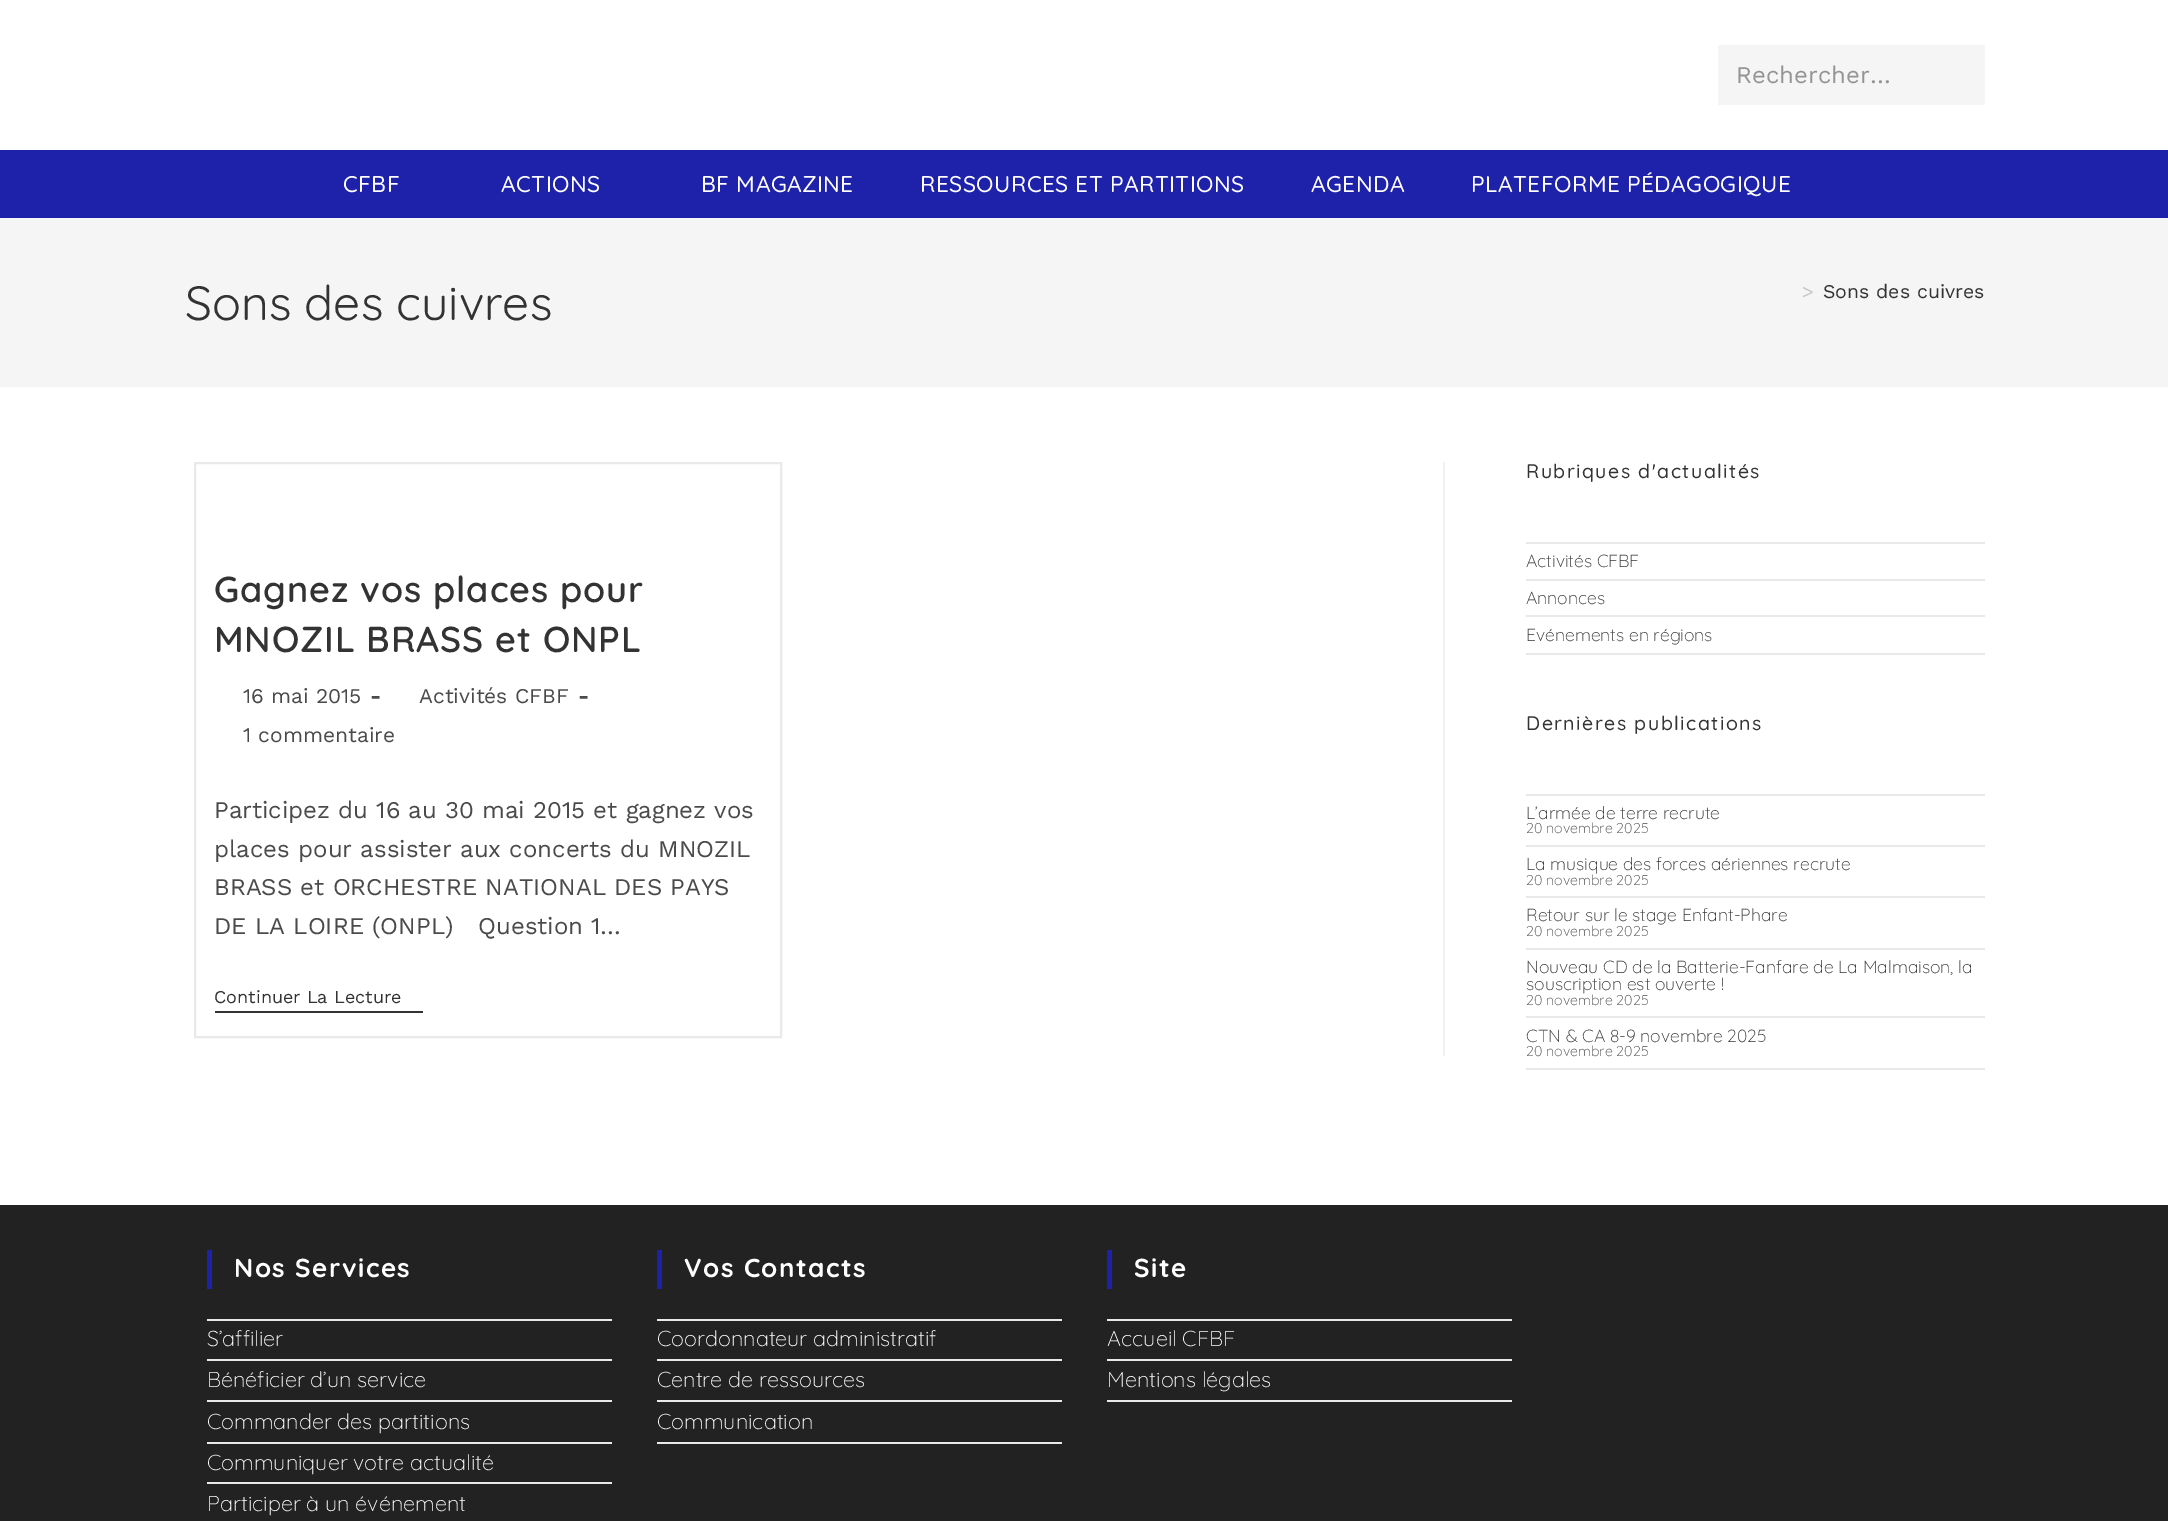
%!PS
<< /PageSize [2168 1521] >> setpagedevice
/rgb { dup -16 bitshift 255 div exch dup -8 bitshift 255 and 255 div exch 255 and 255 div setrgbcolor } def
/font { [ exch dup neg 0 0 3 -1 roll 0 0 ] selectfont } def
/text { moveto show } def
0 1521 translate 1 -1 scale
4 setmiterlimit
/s1 { /WorkSans-Regular 24 font 16#949494 rgb } def
/s2 { /Quicksand-Regular 48 font 16#333333 rgb } def
/s3 { /WorkSans-Regular 19.5 font 16#C6C6C6 rgb } def
/s4 { /WorkSans-Regular 19.5 font 16#333333 rgb } def
/s5 { /WorkSans-Regular 21 font 16#4A4A4A rgb } def
/s6 { /WorkSans-Bold 21 font 16#4A4A4A rgb } def
/s7 { /WorkSans-Regular 24 font 16#4A4A4A rgb } def
/s8 { /WorkSans-Regular 18 font 16#333333 rgb } def
/s9 { /Quicksand-Light 17.55 font 16#333333 rgb } def
/s10 { /Quicksand-Light 14.25 font 16#4A4A4A rgb } def
/s11 { /Quicksand-Light 21.6 font 16#FFFFFF rgb } def
16#FFFFFF rgb
0 0 2168 1521 rectfill
16#F5F5F5 rgb
1718 45 267 60 rectfill
s1
(Rechercher…) 1736 83 text
16#1E22AA rgb
0 150 2168 68 rectfill
/Quicksand-Medium 22.75 font
16#FFFFFF rgb
343 192 moveto 0.45 0 (CFBF) ashow
501 192 moveto 0.45 0 (ACTIONS) ashow
701 192 moveto 0.45 0 (BF MAGAZINE) ashow
920 192 moveto 0.45 0 (RESSOURCES ET PARTITIONS) ashow
1311 192 moveto 0.45 0 (AGENDA) ashow
1471 192 moveto 0.45 0 (PLATEFORME PÉDAGOGIQUE) ashow
16#F5F5F5 rgb
0 218 2168 169 rectfill
s2
(Sons des cuivres) 185 320 text
s3
(>) 1802 298 text
s4
(Sons des cuivres) 1823 298 text
16#F1F1F1 rgb
1443 462 2 594 rectfill
16#E9E9E9 rgb
2 setlinewidth
195 463 586 574 rectstroke
/Quicksand-SemiBold 36 font
16#333333 rgb
214 602 moveto 0.9 0 (Gagnez vos places pour) ashow
214 652 moveto 0.9 0 (MNOZIL BRASS et ONPL) ashow
s5
(16 mai 2015) 243 703 text
s6
(-) 370 703 text
s5
(Activités CFBF) 419 703 text
s6
(-) 578 703 text
s5
(1 commentaire) 243 742 text
s7
(Participez du 16 au 30 mai 2015 et gagnez vos) 214 818 text
(places pour assister aux concerts du MNOZIL) 214 857 text
(BRASS et ORCHESTRE NATIONAL DES PAYS) 214 895 text
(DE LA LOIRE \(ONPL\)   Question 1…) 214 934 text
16#333333 rgb
215 1011 208 2 rectfill
s8
(Continuer La Lecture) 214 1003 text
/Quicksand-Medium 19.5 font
1526 478 moveto 1.5 0 (Rubriques d'actualités) ashow
16#E9E9E9 rgb
1526 542 459 2 rectfill
1526 579 459 2 rectfill
s9
(Activités CFBF) 1526 567 text
16#E9E9E9 rgb
1526 615 459 2 rectfill
s9
(Annonces) 1526 604 text
16#E9E9E9 rgb
1526 653 459 2 rectfill
s9
(Evénements en régions) 1526 641 text
/Quicksand-Medium 19.5 font
1526 730 moveto 1.5 0 (Dernières publications) ashow
16#E9E9E9 rgb
1526 794 459 2 rectfill
1526 845 459 2 rectfill
s9
(L’armée de terre recrute) 1526 819 text
s10
(20 novembre 2025) 1526 833 text
16#E9E9E9 rgb
1526 896 459 2 rectfill
s9
(La musique des forces aériennes recrute) 1526 870 text
s10
(20 novembre 2025) 1526 885 text
16#E9E9E9 rgb
1526 948 459 2 rectfill
s9
(Retour sur le stage Enfant-Phare) 1526 921 text
s10
(20 novembre 2025) 1526 936 text
16#E9E9E9 rgb
1526 1016 459 2 rectfill
s9
(Nouveau CD de la Batterie-Fanfare de La Malmaison, la) 1526 973 text
(souscription est ouverte !) 1526 990 text
s10
(20 novembre 2025) 1526 1005 text
16#E9E9E9 rgb
1526 1068 459 2 rectfill
s9
(CTN & CA 8-9 novembre 2025) 1526 1042 text
s10
(20 novembre 2025) 1526 1056 text
16#222222 rgb
0 1205 2168 316 rectfill
16#1E22AA rgb
207 1250 5 39 rectfill
/Quicksand-Bold 26 font
16#FFFFFF rgb
234 1277 moveto 1.5 0 (Nos Services) ashow
16#E9E9E9 rgb
207 1319 405 2 rectfill
207 1359 405 2 rectfill
s11
(S’affilier) 207 1346 text
16#E9E9E9 rgb
207 1400 405 2 rectfill
s11
(Bénéficier d’un service) 207 1387 text
16#E9E9E9 rgb
207 1442 405 2 rectfill
s11
(Commander des partitions) 207 1429 text
16#E9E9E9 rgb
207 1482 405 2 rectfill
s11
(Communiquer votre actualité) 207 1470 text
(Participer à un événement) 207 1511 text
16#1E22AA rgb
657 1250 5 39 rectfill
/Quicksand-Bold 26 font
16#FFFFFF rgb
684 1277 moveto 1.5 0 (Vos Contacts) ashow
16#E9E9E9 rgb
657 1319 405 2 rectfill
657 1359 405 2 rectfill
s11
(Coordonnateur administratif) 657 1346 text
16#E9E9E9 rgb
657 1400 405 2 rectfill
s11
(Centre de ressources) 657 1387 text
16#E9E9E9 rgb
657 1442 405 2 rectfill
s11
(Communication) 657 1429 text
16#1E22AA rgb
1107 1250 5 39 rectfill
/Quicksand-Bold 26 font
16#FFFFFF rgb
1134 1277 moveto 1.5 0 (Site) ashow
16#E9E9E9 rgb
1107 1319 405 2 rectfill
1107 1359 405 2 rectfill
s11
(Accueil CFBF) 1107 1346 text
16#E9E9E9 rgb
1107 1400 405 2 rectfill
s11
(Mentions légales) 1107 1387 text
showpage
